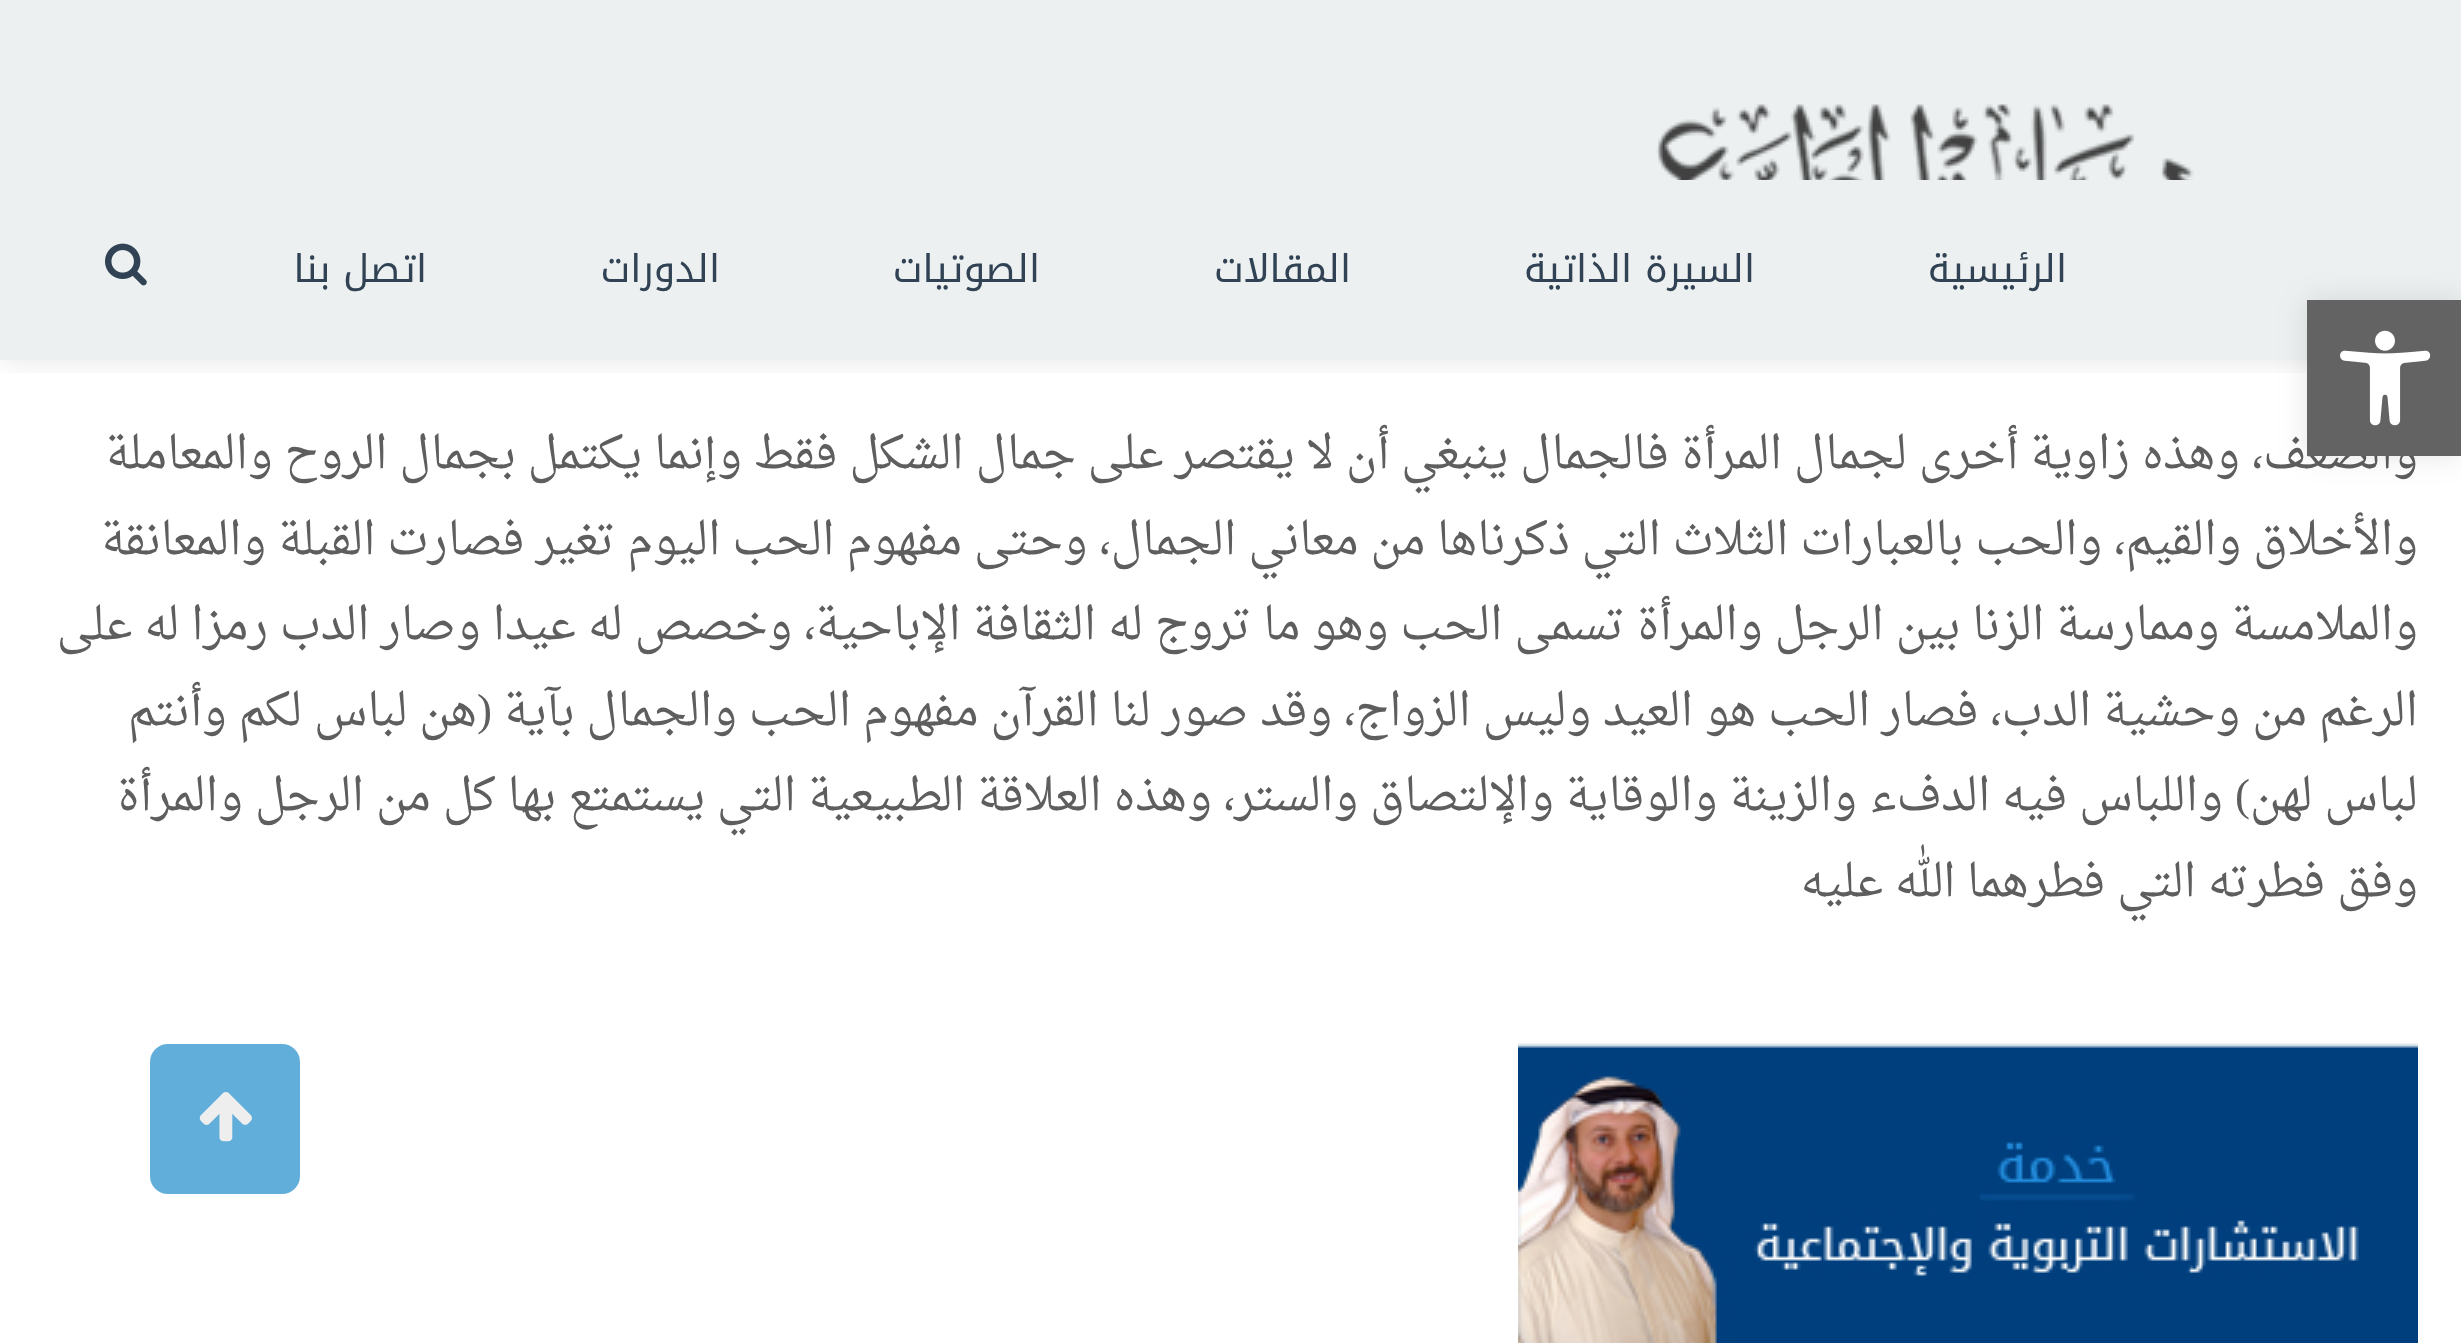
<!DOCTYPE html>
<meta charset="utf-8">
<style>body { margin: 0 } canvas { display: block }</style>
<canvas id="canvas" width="2461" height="1343"></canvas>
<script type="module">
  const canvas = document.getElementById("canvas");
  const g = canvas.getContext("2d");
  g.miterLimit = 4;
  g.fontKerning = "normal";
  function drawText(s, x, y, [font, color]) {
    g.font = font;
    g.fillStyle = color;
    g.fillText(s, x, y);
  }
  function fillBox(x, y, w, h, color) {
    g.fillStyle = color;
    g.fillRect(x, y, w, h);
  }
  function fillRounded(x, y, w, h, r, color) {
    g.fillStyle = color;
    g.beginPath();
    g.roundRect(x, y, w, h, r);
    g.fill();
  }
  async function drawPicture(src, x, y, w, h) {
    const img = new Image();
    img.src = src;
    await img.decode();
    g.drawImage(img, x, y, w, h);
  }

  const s1 = ["38.25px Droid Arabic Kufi", "#304253"];
  const s2 = ["45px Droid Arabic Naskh", "#5E5E5E"];
  const s3 = ["45px Liberation Serif", "#5E5E5E"];

  fillBox(0, 0, 2461, 1343, "#FFFFFF");
  g.save();
  g.beginPath();
  g.rect(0, 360, 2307, 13);
  g.clip();
  g.fillStyle = "rgba(0, 0, 0, 0.1)";
  g.filter = "blur(15px)";
  g.beginPath();
  g.rect(0, 0, 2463, 360);
  g.fill();
  g.filter = "none";
  g.restore();
  fillBox(0, 0, 2461, 360, "rgba(236, 240, 241, 0.98)");
  await drawPicture("pic1.png", 1656, 104, 538, 76);
  g.direction = "rtl";
  drawText("الرئيسية", 2067, 282, s1);
  drawText("السيرة الذاتية", 1755, 282, s1);
  drawText("المقالات", 1351, 282, s1);
  drawText("الصوتيات", 1040, 282, s1);
  drawText("الدورات", 720, 282, s1);
  drawText("اتصل بنا", 427, 282, s1);
  await drawPicture("pic2.png", 105, 243, 42, 43);
  drawText("والضعف، وهذه زاوية أخرى لجمال المرأة", 2418, 468, s2);
  drawText("فالجمال ينبغي أن لا يقتصر على جمال الشكل فقط وإنما يكتمل بجمال الروح والمعاملة", 1669, 468, s2);
  drawText("والأخلاق والقيم، والحب بالعبارات الثلاث التي ذكرناها من معاني الجمال، وحتى مفهوم الحب اليوم تغير فصارت القبلة والمعانقة", 2418, 554, s2);
  drawText("والملامسة وممارسة الزنا بين الرجل والمرأة تسمى الحب وهو ما تروج له الثقافة الإباحية، وخصص له عيدا وصار الدب رمزا له على", 2418, 639, s2);
  drawText("الرغم من وحشية الدب، فصار الحب هو العيد وليس الزواج، وقد صور لنا القرآن مفهوم الحب والجمال بآية", 2418, 725, s2);
  drawText("(", 492, 725, s3);
  drawText("هن لباس لكم وأنتم", 477, 725, s2);
  drawText("لباس لهن", 2418, 810, s2);
  drawText(")", 2250, 810, s3);
  drawText("واللباس فيه الدفء والزينة والوقاية والإلتصاق والستر، وهذه العلاقة الطبيعية التي يستمتع بها كل من الرجل والمرأة", 2223, 810, s2);
  drawText("وفق فطرته التي فطرهما الله عليه", 2418, 896, s2);
  await drawPicture("pic3.png", 1518, 1043, 900, 300);
  g.fillStyle = "rgba(0, 0, 0, 0.1)";
  g.filter = "blur(15px)";
  g.beginPath();
  g.rect(2307, 300, 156, 156);
  g.fill();
  g.filter = "none";
  fillBox(2307, 300, 154, 156, "#636363");
  await drawPicture("pic4.png", 2340, 330, 91, 96);
  fillRounded(150, 1044, 150, 150, 18, "#61AEDA");
  await drawPicture("pic5.png", 199, 1092, 53, 50);
</script>
